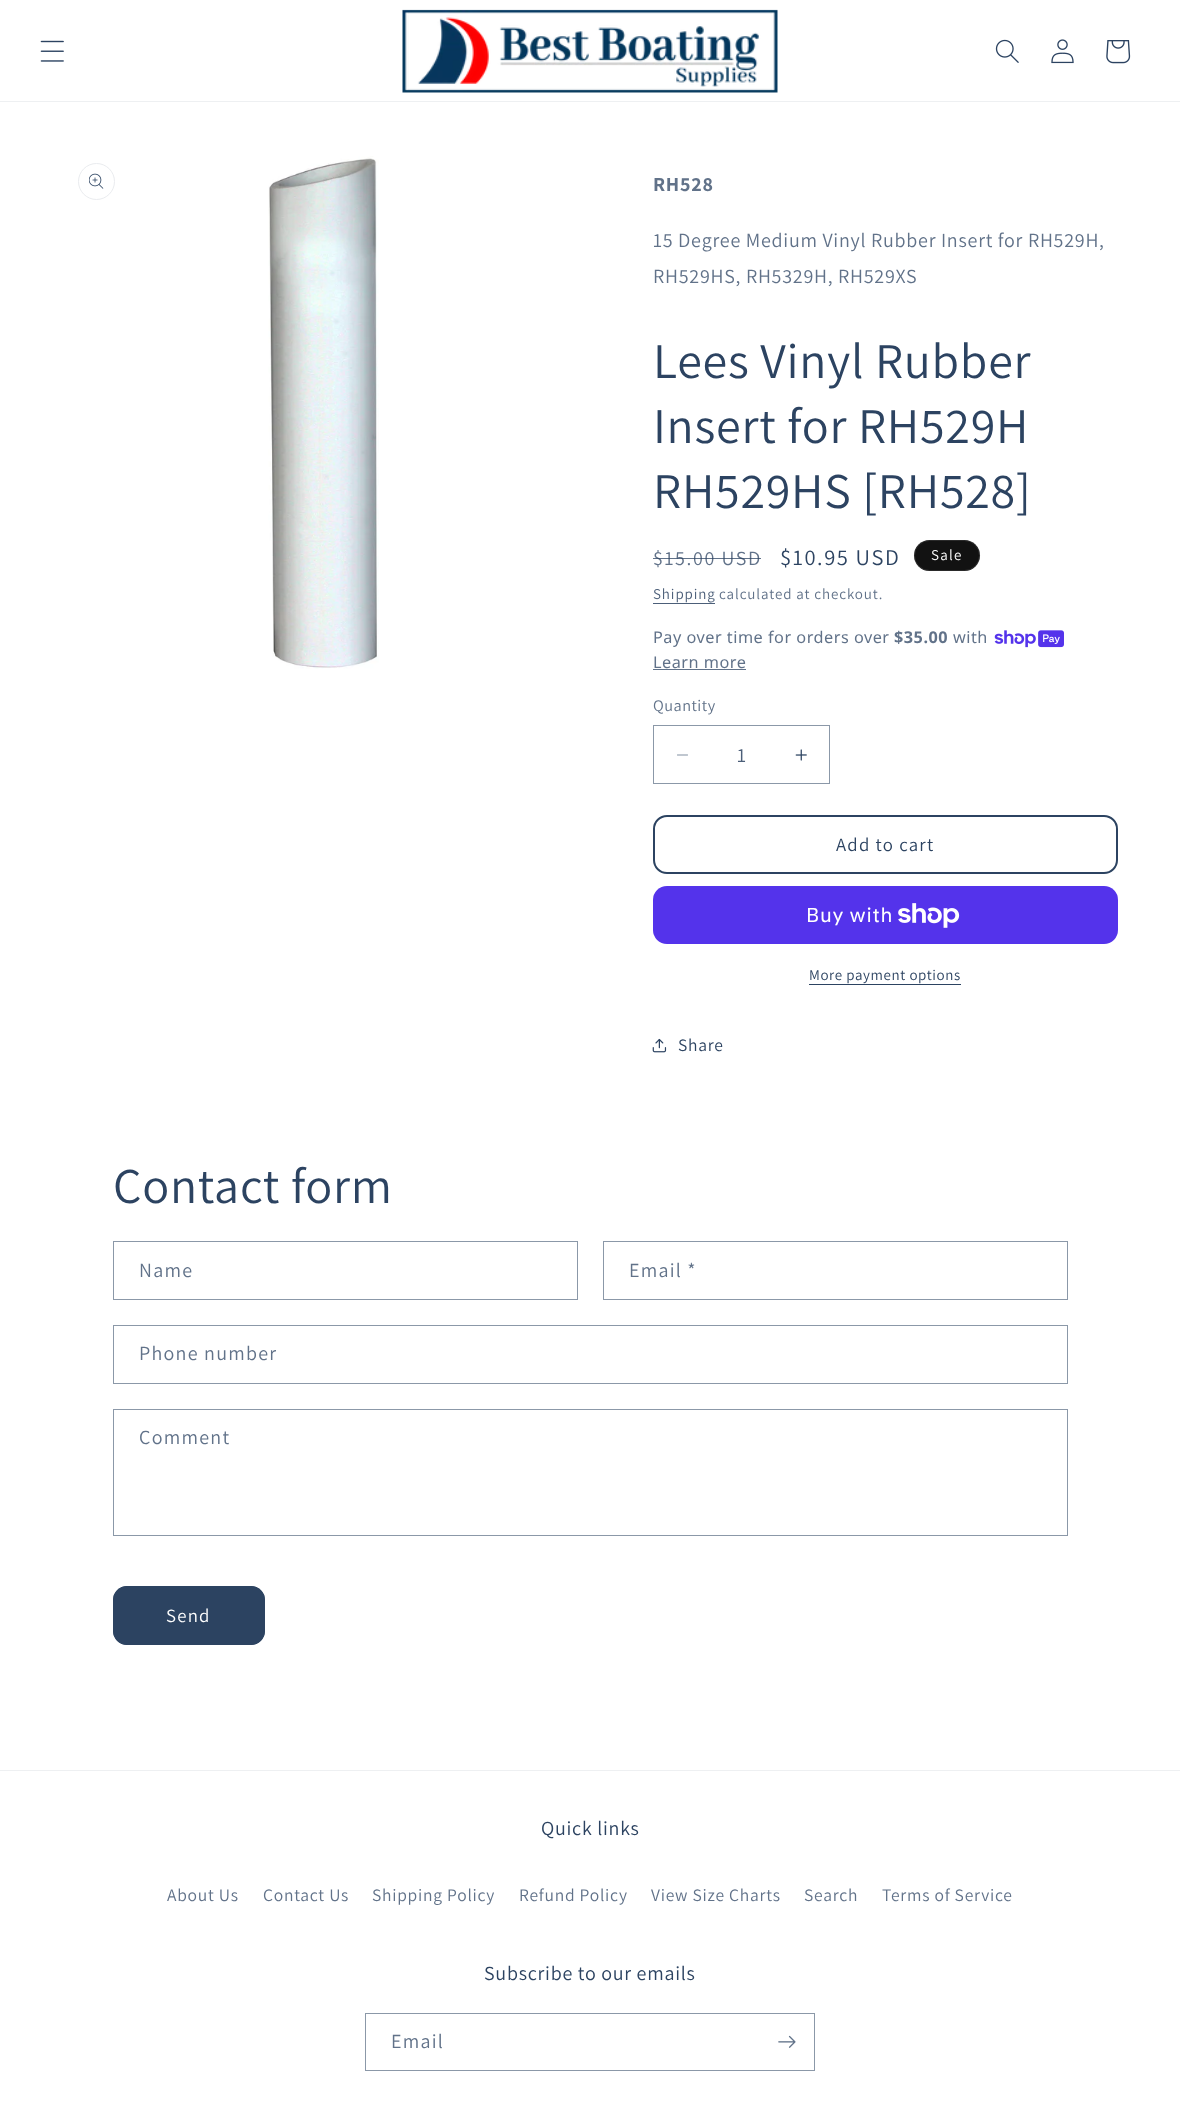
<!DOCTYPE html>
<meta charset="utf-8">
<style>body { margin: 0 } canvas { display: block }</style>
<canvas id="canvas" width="1180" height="2111"></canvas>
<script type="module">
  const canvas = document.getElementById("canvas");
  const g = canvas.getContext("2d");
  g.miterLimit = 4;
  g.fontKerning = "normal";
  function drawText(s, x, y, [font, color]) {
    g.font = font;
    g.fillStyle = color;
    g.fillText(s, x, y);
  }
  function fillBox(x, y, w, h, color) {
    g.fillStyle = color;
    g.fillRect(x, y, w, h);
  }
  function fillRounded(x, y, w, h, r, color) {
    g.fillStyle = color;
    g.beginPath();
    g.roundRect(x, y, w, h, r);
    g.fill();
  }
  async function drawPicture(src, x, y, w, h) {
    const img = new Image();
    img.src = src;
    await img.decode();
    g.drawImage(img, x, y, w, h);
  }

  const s1 = ["bold 20px Assistant", "#617289"];
  const s2 = ["20px Assistant", "#617289"];
  const s3 = ["50px Assistant", "#2C4361"];
  const s4 = ["22.5px Assistant", "#2C4361"];
  const s5 = ["15px Assistant", "#FFFFFF"];
  const s6 = ["15px Assistant", "#4C5F79"];
  const s7 = ["15px Assistant", "#617289"];
  const s8 = ["16.25px Noto Sans", "#617289"];
  const s9 = ["bold 16.25px Noto Sans", "#617289"];
  const s10 = ["16.25px Assistant", "#617289"];
  const s11 = ["20px Assistant", "#4C5F79"];
  const s12 = ["18.75px Assistant", "#2C4361"];
  const s13 = ["20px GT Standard", "#FFFFFF"];
  const s14 = ["15px Assistant", "#2C4361"];
  const s15 = ["17.5px Assistant", "#2C4361"];
  const s16 = ["18.75px Assistant", "#FFFFFF"];
  const s17 = ["20px Assistant", "#2C4361"];
  const s18 = ["17.5px Assistant", "#617289"];

  fillBox(0, 0, 1180, 2111, "#FFFFFF");
  fillBox(0, 101, 1180, 1, "#EEF0F2");
  await drawPicture("pic1.png", 40, 40, 24, 22);
  await drawPicture("pic2.png", 402, 9, 376, 84);
  await drawPicture("pic3.png", 995, 39, 24, 24);
  await drawPicture("pic4.png", 1051, 39, 23, 25);
  await drawPicture("pic5.png", 1106, 40, 25, 24);
  g.beginPath();
  g.arc(96.5, 181.5, 18, 0, Math.PI * 2);
  g.strokeStyle = "#EAECEF";
  g.stroke();
  await drawPicture("pic6.png", 89, 173, 15, 16);
  await drawPicture("pic7.png", 268, 156, 111, 513);
  g.letterSpacing = "0.75px";
  drawText("RH528", 653, 191, s1);
  drawText("15 Degree Medium Vinyl Rubber Insert for RH529H,", 653, 247, s2);
  drawText("RH529HS, RH5329H, RH529XS", 653, 283, s2);
  drawText("Lees Vinyl Rubber", 653, 378, s3);
  drawText("Insert for RH529H", 653, 443, s3);
  drawText("RH529HS [RH528]", 653, 508, s3);
  g.letterSpacing = "1.6px";
  drawText("$15.00 USD", 653, 565, s2);
  fillBox(653, 558, 108, 1, "rgba(44, 67, 97, 0.75)");
  drawText("$10.95 USD", 780, 565, s4);
  fillRounded(914, 540, 66, 31, 15.5, "#121212");
  g.beginPath();
  g.roundRect(914.5, 540.5, 65, 30, 15);
  g.strokeStyle = "rgba(255, 255, 255, 0.1)";
  g.stroke();
  g.letterSpacing = "1.25px";
  drawText("Sale", 931, 560, s5);
  g.letterSpacing = "0.9px";
  drawText("Shipping", 653, 599, s6);
  fillBox(653, 603, 62, 1, "#4C5F79");
  drawText("calculated at checkout.", 719, 599, s7);
  g.letterSpacing = "0.5px";
  drawText("Pay over time for orders over", 653, 643, s8);
  drawText("$35.00", 894, 643, s9);
  drawText("with", 953, 643, s8);
  await drawPicture("pic8.png", 994, 630, 70, 18);
  drawText("Learn more", 653, 668, s8);
  fillBox(653, 669, 93, 1, "#617289");
  drawText("Quantity", 653, 711, s10);
  await drawPicture("pic9.png", 677, 754, 11, 2);
  await drawPicture("pic10.png", 795, 749, 12, 12);
  g.strokeStyle = "#8B98A8";
  g.strokeRect(653.5, 725.5, 176, 58);
  g.letterSpacing = "0px";
  drawText("1", 737, 762, s11);
  g.beginPath();
  g.roundRect(654, 816, 463, 57, 13);
  g.strokeStyle = "#2C4361";
  g.lineWidth = 2;
  g.stroke();
  g.letterSpacing = "1.25px";
  drawText("Add to cart", 836, 851, s12);
  fillRounded(653, 886, 465, 58, 14, "#5433EB");
  g.letterSpacing = "0.75px";
  drawText("Buy with", 806, 922, s13);
  await drawPicture("pic11.png", 898, 903, 62, 25);
  g.letterSpacing = "0.6px";
  drawText("More payment options", 809, 980, s14);
  fillBox(809, 984, 152, 1, "#2C4361");
  await drawPicture("pic12.png", 652, 1038, 15, 15);
  g.letterSpacing = "0.75px";
  drawText("Share", 678, 1051, s15);
  drawText("Contact form", 113, 1203, s3);
  g.strokeStyle = "#8B98A8";
  g.lineWidth = 1;
  g.strokeRect(113.5, 1241.5, 464, 58);
  g.letterSpacing = "1.25px";
  drawText("Name", 139, 1277, s2);
  g.strokeRect(603.5, 1241.5, 464, 58);
  drawText("Email *", 629, 1277, s2);
  g.strokeRect(113.5, 1325.5, 954, 58);
  drawText("Phone number", 139, 1360, s2);
  g.strokeRect(113.5, 1409.5, 954, 126);
  drawText("Comment", 139, 1444, s2);
  fillRounded(113, 1586, 152, 59, 14, "#2C4361");
  g.beginPath();
  g.roundRect(113.5, 1586.5, 151, 58, 13.5);
  g.strokeStyle = "#2C4361";
  g.stroke();
  drawText("Send", 166, 1622, s16);
  fillBox(0, 1770, 1180, 1, "#EEF0F2");
  g.letterSpacing = "0.75px";
  drawText("Quick links", 541, 1835, s17);
  drawText("About Us", 167, 1901, s18);
  drawText("Contact Us", 263, 1901, s18);
  drawText("Shipping Policy", 372, 1901, s18);
  drawText("Refund Policy", 519, 1901, s18);
  drawText("View Size Charts", 651, 1901, s18);
  drawText("Search", 804, 1901, s18);
  drawText("Terms of Service", 882, 1901, s18);
  drawText("Subscribe to our emails", 484, 1980, s17);
  g.strokeStyle = "#8B98A8";
  g.strokeRect(365.5, 2013.5, 449, 57);
  g.letterSpacing = "1.25px";
  drawText("Email", 391, 2048, s2);
  await drawPicture("pic13.png", 778, 2035, 18, 13);
</script>
